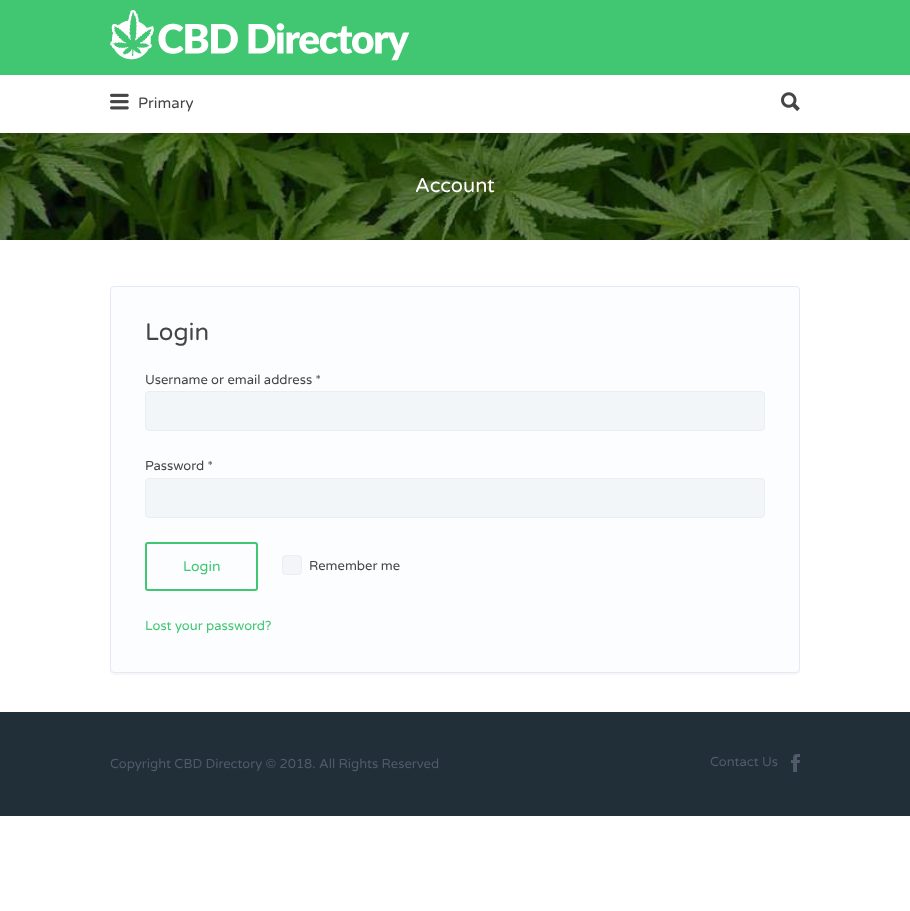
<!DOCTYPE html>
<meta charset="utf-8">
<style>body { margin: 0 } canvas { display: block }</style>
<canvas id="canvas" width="910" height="911"></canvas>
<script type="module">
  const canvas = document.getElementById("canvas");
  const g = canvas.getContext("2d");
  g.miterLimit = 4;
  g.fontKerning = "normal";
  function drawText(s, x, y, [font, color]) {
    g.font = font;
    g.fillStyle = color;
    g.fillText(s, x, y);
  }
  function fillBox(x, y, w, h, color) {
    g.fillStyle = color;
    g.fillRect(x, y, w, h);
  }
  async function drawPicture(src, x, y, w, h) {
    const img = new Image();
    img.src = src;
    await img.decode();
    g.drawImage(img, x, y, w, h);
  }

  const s1 = ["15px Varela Round", "#454545"];
  const s2 = ["20px Varela Round", "#FFFFFF"];
  const s3 = ["24px Varela Round", "#454545"];
  const s4 = ["13px Varela Round", "#454545"];
  const s5 = ["14px Varela Round", "#41C772"];
  const s6 = ["13px Varela Round", "#41C772"];
  const s7 = ["13px Varela Round", "#515B6A"];

  fillBox(0, 0, 910, 911, "#FFFFFF");
  fillBox(0, 0, 910, 75, "#41C772");
  await drawPicture("pic1.png", 110, 10, 300, 51);
  await drawPicture("pic2.png", 110, 93, 19, 17);
  drawText("Primary", 138, 108, s1);
  await drawPicture("pic3.png", 781, 92, 19, 19);
  await drawPicture("pic4.png", 0, 133, 910, 107);
  drawText("Account", 415, 192, s2);
  g.fillStyle = "#F7F7F7";
  g.beginPath();
  g.moveTo(110, 669);
  g.lineTo(110, 671);
  g.bezierCurveTo(110, 673, 112, 675, 114, 675);
  g.lineTo(796, 675);
  g.bezierCurveTo(798, 675, 800, 673, 800, 671);
  g.lineTo(800, 669);
  g.bezierCurveTo(800, 671, 798, 673, 796, 673);
  g.lineTo(114, 673);
  g.bezierCurveTo(112, 673, 110, 671, 110, 669);
  g.closePath();
  g.fill();
  g.fillStyle = "#FCFDFF";
  g.beginPath();
  g.roundRect(110.5, 286.5, 689, 386, 3.5);
  g.fill();
  g.strokeStyle = "#E3EAF4";
  g.stroke();
  drawText("Login", 145, 340, s3);
  drawText("Username or email address *", 145, 384, s4);
  g.fillStyle = "#F3F6F9";
  g.beginPath();
  g.roundRect(145.5, 391.5, 619, 39, 3.5);
  g.fill();
  g.strokeStyle = "#EBEEF1";
  g.stroke();
  drawText("Password *", 145, 470, s4);
  g.fillStyle = "#F3F6F9";
  g.beginPath();
  g.roundRect(145.5, 478.5, 619, 39, 3.5);
  g.fill();
  g.stroke();
  g.beginPath();
  g.roundRect(146, 543, 111, 47, 2);
  g.strokeStyle = "#41C772";
  g.lineWidth = 2;
  g.stroke();
  drawText("Login", 183, 571, s5);
  g.fillStyle = "#F3F6F9";
  g.beginPath();
  g.roundRect(282.5, 555.5, 19, 19, 3.5);
  g.fill();
  g.strokeStyle = "#EBEEF1";
  g.lineWidth = 1;
  g.stroke();
  drawText("Remember me", 309, 570, s4);
  drawText("Lost your password?", 145, 630, s6);
  fillBox(0, 712, 910, 104, "#202F38");
  drawText("Copyright CBD Directory © 2018. All Rights Reserved", 110, 768, s7);
  drawText("Contact Us", 710, 766, s7);
  await drawPicture("pic5.png", 791, 754, 9, 18);
</script>
